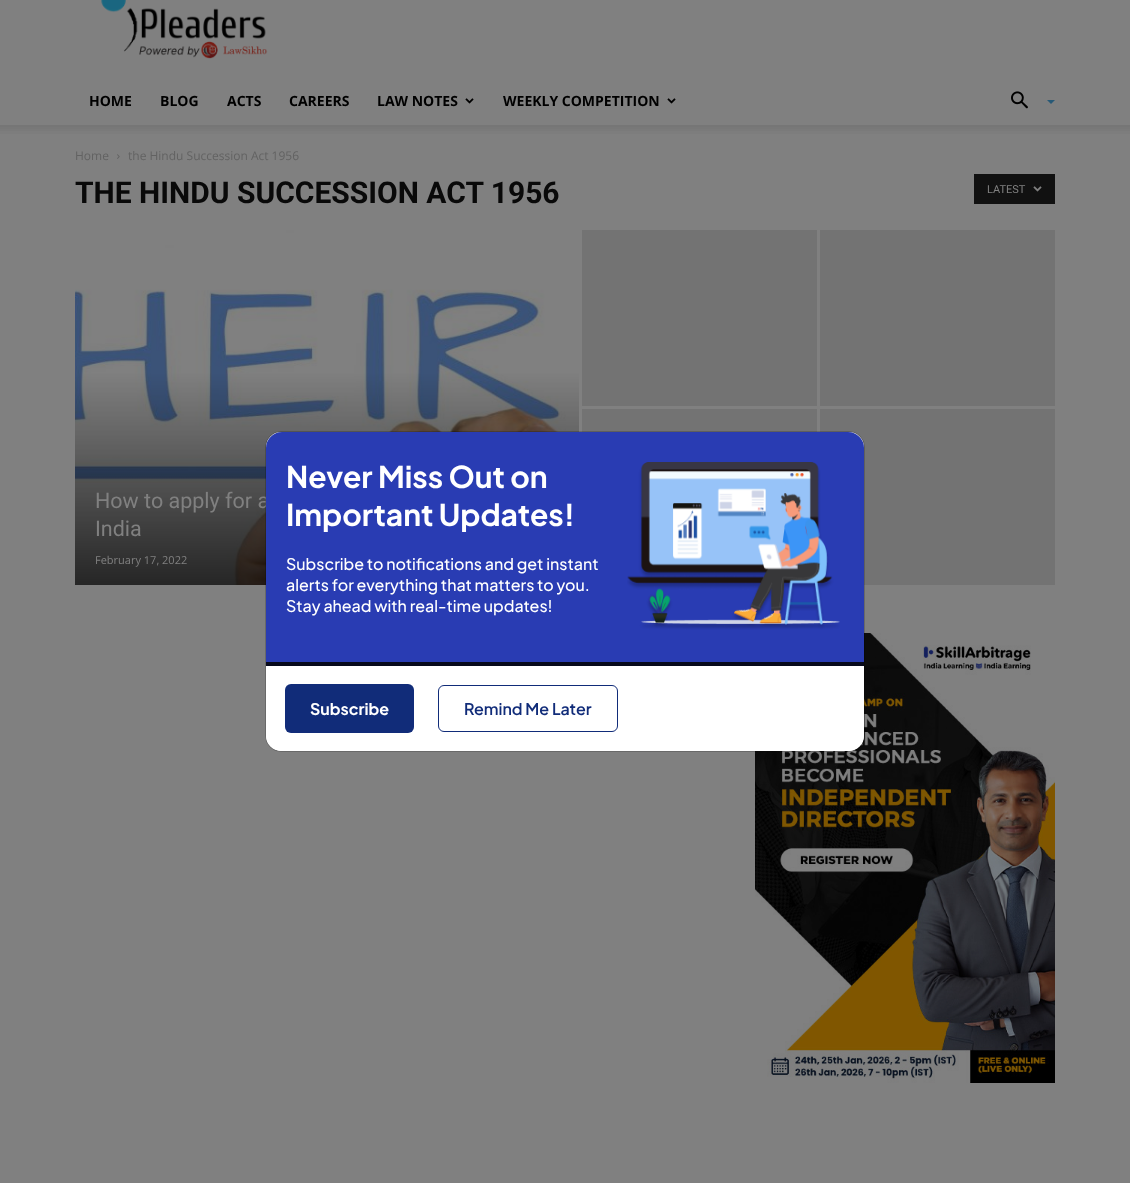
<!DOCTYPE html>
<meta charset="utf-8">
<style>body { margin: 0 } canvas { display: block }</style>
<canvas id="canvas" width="1130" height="1183"></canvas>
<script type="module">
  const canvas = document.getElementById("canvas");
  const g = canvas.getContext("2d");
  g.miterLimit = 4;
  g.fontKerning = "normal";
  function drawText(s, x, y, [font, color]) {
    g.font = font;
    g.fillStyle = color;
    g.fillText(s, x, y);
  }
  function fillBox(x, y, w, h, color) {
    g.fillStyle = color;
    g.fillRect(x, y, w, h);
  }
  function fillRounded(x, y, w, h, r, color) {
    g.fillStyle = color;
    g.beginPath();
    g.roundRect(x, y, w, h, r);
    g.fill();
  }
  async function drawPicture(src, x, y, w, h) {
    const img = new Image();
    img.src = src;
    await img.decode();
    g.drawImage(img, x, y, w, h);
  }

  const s1 = ["bold 14px Open Sans", "#000000"];
  const s2 = ["12px Open Sans", "#626262"];
  const s3 = ["bold 30px Roboto", "#090909"];
  const s4 = ["11px Roboto", "#808080"];
  const s5 = ["21.5px Roboto", "#808080"];
  const s6 = ["11px Open Sans", "#808080"];
  const s7 = ["bold 30px Plus Jakarta Sans", "#FFFFFF"];
  const s8 = ["500 16px Plus Jakarta Sans", "#FFFFFF"];
  const s9 = ["bold 16px Plus Jakarta Sans", "#FFFFFF"];
  const s10 = ["600 16px Plus Jakarta Sans", "#112C79"];

  fillBox(0, 0, 1130, 1183, "#808080");
  await drawPicture("pic1.png", 101, 0, 167, 59);
  drawText("HOME", 89, 106, s1);
  drawText("BLOG", 160, 106, s1);
  drawText("ACTS", 227, 106, s1);
  drawText("CAREERS", 289, 106, s1);
  drawText("LAW NOTES", 377, 106, s1);
  await drawPicture("pic2.png", 465, 98, 9, 6);
  drawText("WEEKLY COMPETITION", 503, 106, s1);
  await drawPicture("pic2.png", 667, 98, 9, 6);
  await drawPicture("pic3.png", 1011, 91, 17, 18);
  g.fillStyle = "#275976";
  g.beginPath();
  g.moveTo(1047, 100);
  g.lineTo(1055, 100);
  g.lineTo(1051, 104);
  g.closePath();
  g.fill();
  await drawPicture("pic4.png", 0, 125, 1130, 9);
  drawText("Home", 75, 160, s2);
  await drawPicture("pic5.png", 117, 154, 3, 5);
  drawText("the Hindu Succession Act 1956", 128, 160, s2);
  drawText("THE HINDU SUCCESSION ACT 1956", 75, 203, s3);
  fillBox(974, 174, 81, 30, "#111111");
  drawText("LATEST", 987, 193, s4);
  await drawPicture("pic6.png", 1033, 186, 9, 6);
  await drawPicture("pic7.png", 75, 230, 504, 355);
  drawText("How to apply for a", 95, 508, s5);
  drawText("India", 95, 536, s5);
  drawText("February 17, 2022", 95, 564, s6);
  fillBox(582, 230, 235, 176, "#737373");
  fillBox(820, 230, 235, 176, "#737373");
  fillBox(582, 409, 235, 23, "#737373");
  fillBox(820, 409, 235, 176, "#737373");
  await drawPicture("pic8.png", 755, 633, 300, 450);
  fillRounded(266, 432, 598, 319, 15, "#FFFFFF");
  g.beginPath();
  g.roundRect(265.5, 431.5, 599, 320, 15.5);
  g.strokeStyle = "rgba(0, 0, 0, 0.18)";
  g.stroke();
  g.fillStyle = "#293CB3";
  g.beginPath();
  g.roundRect(266, 432, 598, 230, [16, 16, 0, 0]);
  g.fill();
  drawText("Never Miss Out on", 286, 488, s7);
  drawText("Important Updates!", 286, 526, s7);
  drawText("Subscribe to notifications and get instant", 286, 570, s8);
  drawText("alerts for everything that matters to you.", 286, 591, s8);
  drawText("Stay ahead with real-time updates!", 286, 612, s8);
  await drawPicture("pic9.png", 627, 462, 213, 168);
  g.beginPath();
  g.roundRect(266, 662, 598, 89, [0, 0, 16, 16]);
  g.fill();
  fillBox(266, 662, 598, 4, "#07091B");
  fillRounded(285, 684, 129, 49, 6, "#112C79");
  drawText("Subscribe", 310, 715, s9);
  g.beginPath();
  g.roundRect(438.5, 685.5, 179, 46, 5.5);
  g.strokeStyle = "#112C79";
  g.stroke();
  drawText("Remind Me Later", 464, 715, s10);
</script>
